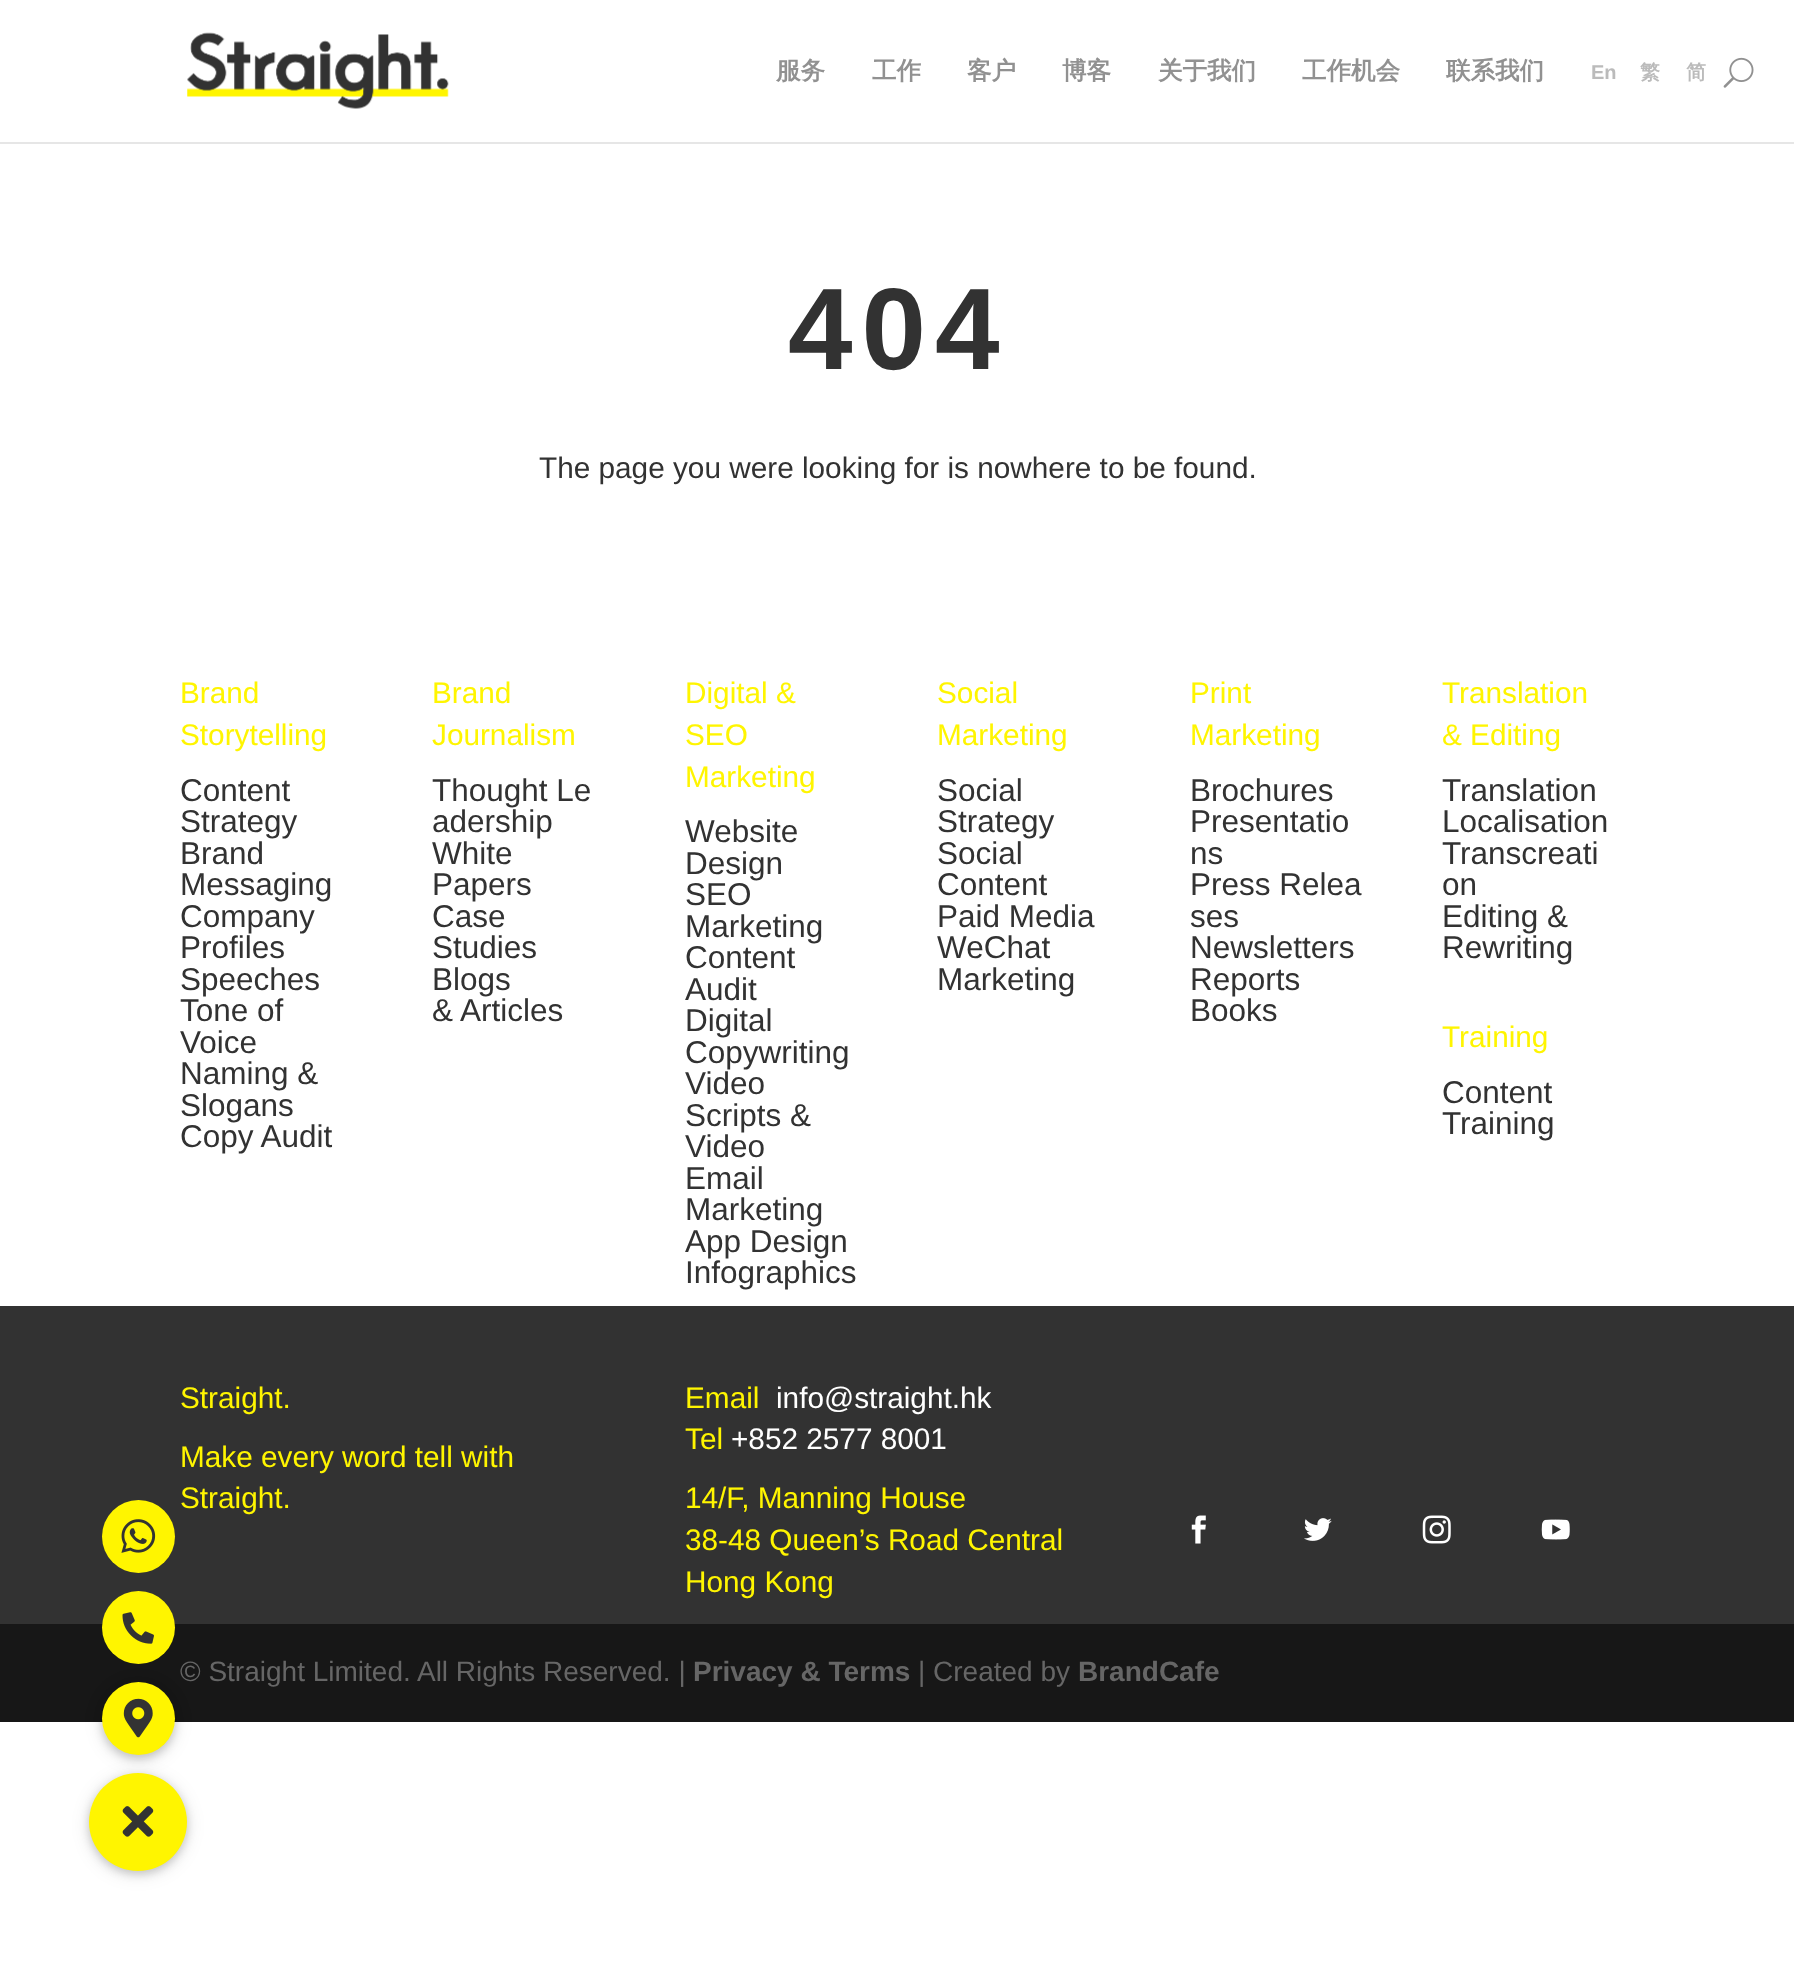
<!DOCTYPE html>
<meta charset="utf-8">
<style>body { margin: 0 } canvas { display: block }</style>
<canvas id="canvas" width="1794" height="1968"></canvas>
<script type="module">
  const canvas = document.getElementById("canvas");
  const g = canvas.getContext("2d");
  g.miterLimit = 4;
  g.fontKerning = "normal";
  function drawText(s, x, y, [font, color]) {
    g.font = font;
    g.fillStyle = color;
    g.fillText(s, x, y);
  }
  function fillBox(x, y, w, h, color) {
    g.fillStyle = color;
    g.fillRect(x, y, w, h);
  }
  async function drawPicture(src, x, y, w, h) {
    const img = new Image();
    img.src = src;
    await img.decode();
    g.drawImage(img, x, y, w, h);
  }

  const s1 = ["bold 24.5px WenQuanYi Zen Hei", "#919191"];
  const s2 = ["bold 20px Liberation Sans", "#BBBBBB"];
  const s3 = ["bold 20px WenQuanYi Zen Hei", "#BBBBBB"];
  const s4 = ["bold 116px Liberation Sans", "#323232"];
  const s5 = ["29.75px Liberation Sans", "#323232"];
  const s6 = ["29.75px Liberation Sans", "#FFF500"];
  const s7 = ["31.5px Liberation Sans", "#323232"];
  const s8 = ["29.75px Liberation Sans", "#FFFFFF"];
  const s9 = ["28px Liberation Sans", "#666666"];
  const s10 = ["bold 28px Liberation Sans", "#666666"];

  fillBox(0, 0, 1794, 1968, "#FFFFFF");
  fillBox(0, 1306, 1794, 318, "#323232");
  g.fillStyle = "#FFF500";
  g.beginPath();
  g.arc(138.5, 1536.5, 36.5, 0, Math.PI * 2);
  g.fill();
  await drawPicture("pic1.png", 121, 1519, 35, 34);
  fillBox(0, 1624, 1794, 98, "#171717");
  g.fillStyle = "rgba(0, 0, 0, 0.12)";
  g.filter = "blur(9px)";
  g.beginPath();
  g.roundRect(102, 1685, 73, 74, 36.5);
  g.fill();
  g.filter = "none";
  g.fillStyle = "#FFF500";
  g.beginPath();
  g.arc(138.5, 1627.5, 36.5, 0, Math.PI * 2);
  g.fill();
  await drawPicture("pic2.png", 122, 1612, 32, 32);
  g.fillStyle = "rgba(0, 0, 0, 0.16)";
  g.filter = "blur(4.5px)";
  g.beginPath();
  g.roundRect(102, 1685, 73, 74, 36.5);
  g.fill();
  g.filter = "none";
  g.fillStyle = "#FFF500";
  g.beginPath();
  g.arc(138.5, 1718.5, 36.5, 0, Math.PI * 2);
  g.fill();
  await drawPicture("pic3.png", 123, 1698, 30, 40);
  g.fillStyle = "rgba(0, 0, 0, 0.12)";
  g.filter = "blur(9px)";
  g.beginPath();
  g.roundRect(89, 1776, 98, 98, 49);
  g.fill();
  g.filter = "none";
  g.fillStyle = "rgba(0, 0, 0, 0.16)";
  g.filter = "blur(4.5px)";
  g.beginPath();
  g.roundRect(89, 1776, 98, 98, 49);
  g.fill();
  g.filter = "none";
  g.fillStyle = "#FFF500";
  g.beginPath();
  g.arc(138, 1822, 49, 0, Math.PI * 2);
  g.fill();
  await drawPicture("pic4.png", 122, 1806, 32, 31);
  g.fillStyle = "#E6E6E6";
  g.beginPath();
  g.moveTo(0, 142);
  g.lineTo(0, 144);
  g.lineTo(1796, 144);
  g.lineTo(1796, 2);
  g.lineTo(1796, 142);
  g.closePath();
  g.fill();
  await drawPicture("pic5.png", 187, 32, 262, 77);
  drawText("服务", 776, 79, s1);
  drawText("工作", 872, 79, s1);
  drawText("客户", 967, 79, s1);
  drawText("博客", 1062, 79, s1);
  drawText("关于我们", 1158, 79, s1);
  drawText("工作机会", 1302, 79, s1);
  drawText("联系我们", 1446, 79, s1);
  drawText("En", 1591, 79, s2);
  drawText("繁", 1640, 79, s3);
  drawText("简", 1686, 79, s3);
  await drawPicture("pic6.png", 1723, 57, 31, 31);
  g.letterSpacing = "9px";
  drawText("404", 788, 369, s4);
  g.letterSpacing = "0px";
  drawText("The page you were looking for is nowhere to be found.", 539, 478, s5);
  drawText("Brand", 180, 703, s6);
  drawText("Storytelling", 180, 745, s6);
  drawText("Content", 180, 801, s7);
  drawText("Strategy", 180, 832, s7);
  drawText("Brand", 180, 864, s7);
  drawText("Messaging", 180, 895, s7);
  drawText("Company", 180, 927, s7);
  drawText("Profiles", 180, 958, s7);
  drawText("Speeches", 180, 990, s7);
  drawText("Tone of", 180, 1021, s7);
  drawText("Voice", 180, 1053, s7);
  drawText("Naming &", 180, 1084, s7);
  drawText("Slogans", 180, 1116, s7);
  drawText("Copy Audit", 180, 1147, s7);
  drawText("Brand", 432, 703, s6);
  drawText("Journalism", 432, 745, s6);
  drawText("Thought Le", 432, 801, s7);
  drawText("adership", 432, 832, s7);
  drawText("White", 432, 864, s7);
  drawText("Papers", 432, 895, s7);
  drawText("Case", 432, 927, s7);
  drawText("Studies", 432, 958, s7);
  drawText("Blogs", 432, 990, s7);
  drawText("& Articles", 432, 1021, s7);
  drawText("Digital &", 685, 703, s6);
  drawText("SEO", 685, 745, s6);
  drawText("Marketing", 685, 787, s6);
  drawText("Website", 685, 842, s7);
  drawText("Design", 685, 874, s7);
  drawText("SEO", 685, 905, s7);
  drawText("Marketing", 685, 937, s7);
  drawText("Content", 685, 968, s7);
  drawText("Audit", 685, 1000, s7);
  drawText("Digital", 685, 1031, s7);
  drawText("Copywriting", 685, 1063, s7);
  drawText("Video", 685, 1094, s7);
  drawText("Scripts &", 685, 1126, s7);
  drawText("Video", 685, 1157, s7);
  drawText("Email", 685, 1189, s7);
  drawText("Marketing", 685, 1220, s7);
  drawText("App Design", 685, 1252, s7);
  drawText("Infographics", 685, 1283, s7);
  drawText("Social", 937, 703, s6);
  drawText("Marketing", 937, 745, s6);
  drawText("Social", 937, 801, s7);
  drawText("Strategy", 937, 832, s7);
  drawText("Social", 937, 864, s7);
  drawText("Content", 937, 895, s7);
  drawText("Paid Media", 937, 927, s7);
  drawText("WeChat", 937, 958, s7);
  drawText("Marketing", 937, 990, s7);
  drawText("Print", 1190, 703, s6);
  drawText("Marketing", 1190, 745, s6);
  drawText("Brochures", 1190, 801, s7);
  drawText("Presentatio", 1190, 832, s7);
  drawText("ns", 1190, 864, s7);
  drawText("Press Relea", 1190, 895, s7);
  drawText("ses", 1190, 927, s7);
  drawText("Newsletters", 1190, 958, s7);
  drawText("Reports", 1190, 990, s7);
  drawText("Books", 1190, 1021, s7);
  drawText("Translation", 1442, 703, s6);
  drawText("& Editing", 1442, 745, s6);
  drawText("Translation", 1442, 801, s7);
  drawText("Localisation", 1442, 832, s7);
  drawText("Transcreati", 1442, 864, s7);
  drawText("on", 1442, 895, s7);
  drawText("Editing &", 1442, 927, s7);
  drawText("Rewriting", 1442, 958, s7);
  drawText("Training", 1442, 1047, s6);
  drawText("Content", 1442, 1103, s7);
  drawText("Training", 1442, 1134, s7);
  drawText("Straight.", 180, 1408, s6);
  drawText("Make every word tell with", 180, 1467, s6);
  drawText("Straight.", 180, 1508, s6);
  drawText("Email", 685, 1408, s6);
  drawText("info@straight.hk", 776, 1408, s8);
  drawText("Tel", 685, 1449, s6);
  drawText("+852 2577 8001", 731, 1449, s8);
  drawText("14/F, Manning House", 685, 1508, s6);
  drawText("38-48 Queen’s Road Central", 685, 1550, s6);
  drawText("Hong Kong", 685, 1592, s6);
  await drawPicture("pic7.png", 1191, 1515, 15, 29);
  await drawPicture("pic8.png", 1304, 1518, 28, 23);
  await drawPicture("pic9.png", 1422, 1515, 29, 29);
  await drawPicture("pic10.png", 1541, 1519, 29, 21);
  drawText("© Straight Limited. All Rights Reserved. |", 180, 1681, s9);
  drawText("Privacy & Terms", 693, 1681, s10);
  drawText("| Created by", 918, 1681, s9);
  drawText("BrandCafe", 1078, 1681, s10);
</script>
